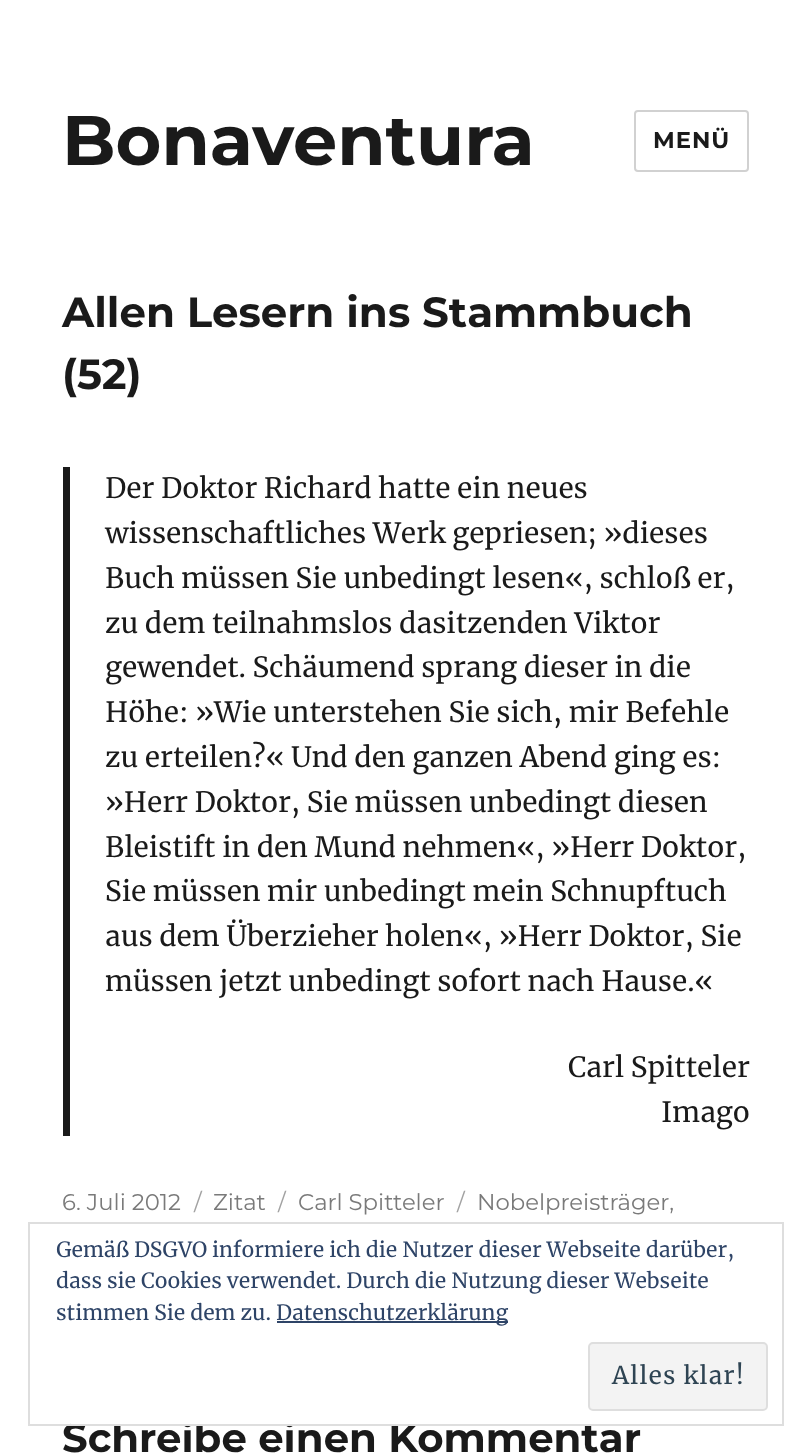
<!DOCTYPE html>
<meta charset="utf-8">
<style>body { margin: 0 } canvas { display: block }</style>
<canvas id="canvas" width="811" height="1454"></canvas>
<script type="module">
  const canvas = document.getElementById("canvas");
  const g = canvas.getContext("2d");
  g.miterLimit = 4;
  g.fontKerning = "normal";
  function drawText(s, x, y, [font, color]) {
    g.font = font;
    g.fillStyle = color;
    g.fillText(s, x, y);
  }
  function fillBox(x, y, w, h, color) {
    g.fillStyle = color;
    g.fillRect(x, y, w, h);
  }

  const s1 = ["bold 70px Montserrat", "#1A1A1A"];
  const s2 = ["bold 22.75px Montserrat", "#1A1A1A"];
  const s3 = ["bold 42px Montserrat", "#1A1A1A"];
  const s4 = ["28px Merriweather", "#1A1A1A"];
  const s5 = ["22.75px Montserrat", "#7A7A7A"];
  const s6 = ["22.75px Montserrat", "#A2A2A2"];
  const s7 = ["bold 40.25px Montserrat", "#1A1A1A"];
  const s8 = ["21px Merriweather", "#2E4467"];
  const s9 = ["24.5px Merriweather", "#2E4453"];

  fillBox(0, 0, 811, 1454, "#FFFFFF");
  drawText("Bonaventura", 62, 165, s1);
  g.beginPath();
  g.roundRect(635, 111, 113, 60, 3);
  g.strokeStyle = "#D1D1D1";
  g.lineWidth = 2;
  g.stroke();
  g.letterSpacing = "1px";
  drawText("MENÜ", 653, 148, s2);
  g.letterSpacing = "0px";
  drawText("Allen Lesern ins Stammbuch", 62, 327, s3);
  drawText("(52)", 62, 389, s3);
  fillBox(63, 467, 7, 669, "#1A1A1A");
  drawText("Der Doktor Richard hatte ein neues", 105, 498, s4);
  drawText("wissenschaftliches Werk gepriesen; »dieses", 105, 543, s4);
  drawText("Buch müssen Sie unbedingt lesen«, schloß er,", 105, 588, s4);
  drawText("zu dem teilnahmslos dasitzenden Viktor", 105, 633, s4);
  drawText("gewendet. Schäumend sprang dieser in die", 105, 677, s4);
  drawText("Höhe: »Wie unterstehen Sie sich, mir Befehle", 105, 722, s4);
  drawText("zu erteilen?« Und den ganzen Abend ging es:", 105, 767, s4);
  drawText("»Herr Doktor, Sie müssen unbedingt diesen", 105, 812, s4);
  drawText("Bleistift in den Mund nehmen«, »Herr Doktor,", 105, 857, s4);
  drawText("Sie müssen mir unbedingt mein Schnupftuch", 105, 901, s4);
  drawText("aus dem Überzieher holen«, »Herr Doktor, Sie", 105, 946, s4);
  drawText("müssen jetzt unbedingt sofort nach Hause.«", 105, 991, s4);
  drawText("Carl Spitteler", 568, 1077, s4);
  drawText("Imago", 661, 1122, s4);
  drawText("6. Juli 2012", 62, 1210, s5);
  drawText("/", 194, 1210, s6);
  drawText("Zitat", 213, 1210, s5);
  drawText("/", 278, 1210, s6);
  drawText("Carl Spitteler", 298, 1210, s5);
  drawText("/", 457, 1210, s6);
  drawText("Nobelpreisträger,", 477, 1210, s5);
  drawText("Schreibe einen Kommentar", 62, 1452, s7);
  fillBox(71, 1420, 348, 4, "#FFFFFF");
  g.strokeStyle = "#DEDEDE";
  g.strokeRect(29, 1223, 754, 202);
  drawText("Gemäß DSGVO informiere ich die Nutzer dieser Webseite darüber,", 56, 1257, s8);
  drawText("dass sie Cookies verwendet. Durch die Nutzung dieser Webseite", 56, 1288, s8);
  drawText("stimmen Sie dem zu.", 56, 1320, s8);
  fillBox(277, 1321, 231, 2, "#2E4467");
  drawText("Datenschutzerklärung", 276, 1320, s8);
  g.fillStyle = "#F3F3F3";
  g.beginPath();
  g.roundRect(589, 1343, 178, 67, 4);
  g.fill();
  g.stroke();
  g.letterSpacing = "1.1px";
  drawText("Alles klar!", 612, 1384, s9);
</script>
